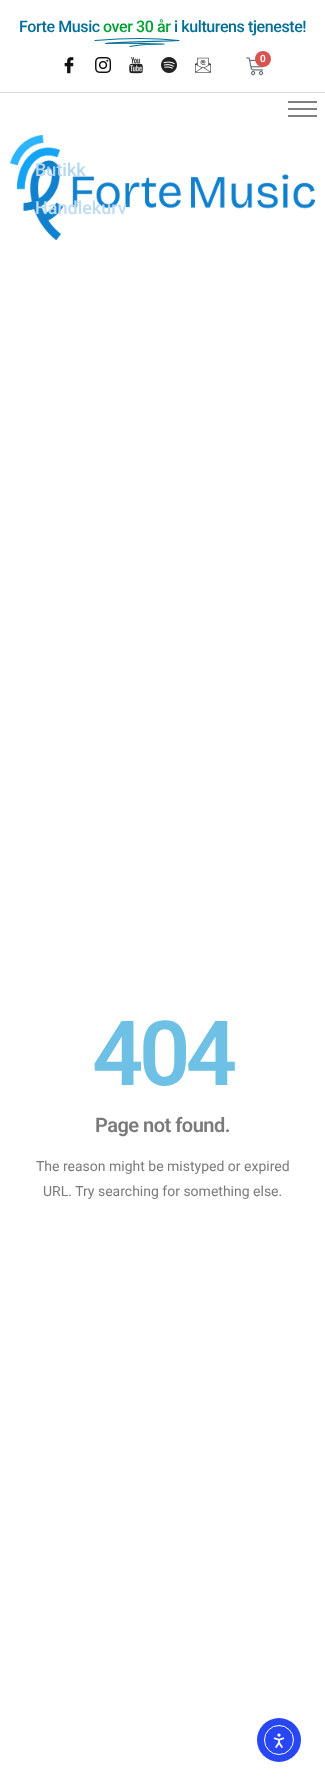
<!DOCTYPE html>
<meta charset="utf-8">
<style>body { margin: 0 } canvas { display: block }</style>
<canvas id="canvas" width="325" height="1786"></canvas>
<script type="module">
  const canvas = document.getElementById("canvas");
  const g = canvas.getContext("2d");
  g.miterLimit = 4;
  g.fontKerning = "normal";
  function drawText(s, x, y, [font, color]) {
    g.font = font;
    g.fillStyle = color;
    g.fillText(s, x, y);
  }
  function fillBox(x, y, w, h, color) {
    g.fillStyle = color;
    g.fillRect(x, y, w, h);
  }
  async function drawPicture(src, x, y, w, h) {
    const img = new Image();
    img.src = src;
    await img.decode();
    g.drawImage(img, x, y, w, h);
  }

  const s1 = ["500 16px Roboto", "#006F97"];
  const s2 = ["500 16px Roboto", "#00A236"];
  const s3 = ["600 10px Roboto", "#FFFFFF"];
  const s4 = ["500 18px Roboto", "#B4D7F0"];
  const s5 = ["500 18px Roboto", "#BEDDF2"];
  const s6 = ["600 90px Roboto", "#6EC1E4"];
  const s7 = ["600 20px Roboto", "#7A7A7A"];
  const s8 = ["14px Roboto", "#7A7A7A"];

  fillBox(0, 0, 325, 1786, "#FFFFFF");
  fillBox(0, 92, 325, 1, "#D4D6E3");
  g.letterSpacing = "-0.4px";
  drawText("Forte Music", 19, 32, s1);
  drawText("over 30 år", 103, 32, s2);
  g.beginPath();
  g.moveTo(95, 40.5);
  g.bezierCurveTo(123, 38, 151.5, 37.5, 179, 40.5);
  g.bezierCurveTo(159.5, 41.5, 125, 41.5, 105.5, 43.5);
  g.bezierCurveTo(120, 43, 150, 43.5, 164, 44);
  g.bezierCurveTo(154.5, 44.5, 140.5, 44, 130, 46.5);
  g.strokeStyle = "#006F97";
  g.lineWidth = 1.1;
  g.lineCap = "round";
  g.lineJoin = "round";
  g.stroke();
  drawText("i kulturens tjeneste!", 174, 32, s1);
  await drawPicture("pic1.png", 64, 57, 10, 17);
  await drawPicture("pic2.png", 95, 57, 17, 16);
  await drawPicture("pic3.png", 129, 57, 14, 17);
  await drawPicture("pic4.png", 161, 57, 16, 16);
  await drawPicture("pic5.png", 195, 57, 16, 16);
  await drawPicture("pic6.png", 246, 57, 18, 19);
  g.fillStyle = "#D9534F";
  g.beginPath();
  g.arc(263, 59, 8, 0, Math.PI * 2);
  g.fill();
  g.letterSpacing = "0px";
  drawText("0", 260, 62, s3);
  await drawPicture("pic7.png", 10, 135, 305, 105);
  fillBox(288, 101, 29, 2, "#808080");
  fillBox(288, 108, 29, 2, "#808080");
  fillBox(288, 115, 29, 2, "#808080");
  drawText("Butikk", 35, 176, s4);
  drawText("Handlekurv", 35, 214, s5);
  g.letterSpacing = "-4.5px";
  drawText("404", 92, 1085, s6);
  g.letterSpacing = "-0.5px";
  drawText("Page not found.", 95, 1132, s7);
  g.letterSpacing = "0px";
  drawText("The reason might be mistyped or expired", 36, 1171, s8);
  drawText("URL. Try searching for something else.", 43, 1196, s8);
  g.fillStyle = "#2847F3";
  g.beginPath();
  g.arc(279, 1740, 22, 0, Math.PI * 2);
  g.fill();
  g.beginPath();
  g.arc(279, 1740, 14.5, 0, Math.PI * 2);
  g.strokeStyle = "#FFFFFF";
  g.lineWidth = 1;
  g.stroke();
  await drawPicture("pic8.png", 273, 1733, 12, 15);
</script>
